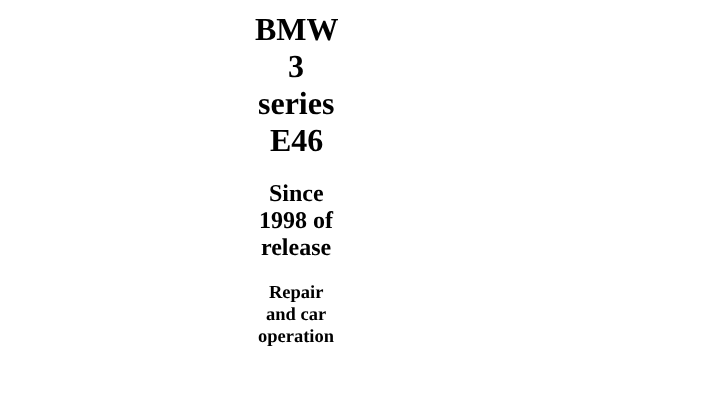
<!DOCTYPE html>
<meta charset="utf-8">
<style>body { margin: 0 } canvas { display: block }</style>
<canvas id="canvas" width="721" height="407"></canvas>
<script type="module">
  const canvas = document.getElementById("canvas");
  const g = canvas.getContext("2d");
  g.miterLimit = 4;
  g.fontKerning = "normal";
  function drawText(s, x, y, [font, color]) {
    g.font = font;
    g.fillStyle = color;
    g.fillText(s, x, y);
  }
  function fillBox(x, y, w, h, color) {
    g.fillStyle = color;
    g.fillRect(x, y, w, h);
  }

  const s1 = ["bold 32px Liberation Serif", "#000000"];
  const s2 = ["bold 24px Liberation Serif", "#000000"];
  const s3 = ["bold 18.5px Liberation Serif", "#000000"];

  fillBox(0, 0, 721, 407, "#FFFFFF");
  drawText("BMW", 255, 40, s1);
  drawText("3", 288, 77, s1);
  drawText("series", 258, 114, s1);
  drawText("E46", 270, 151, s1);
  drawText("Since", 269, 201, s2);
  drawText("1998 of", 259, 228, s2);
  drawText("release", 261, 255, s2);
  drawText("Repair", 269, 298, s3);
  drawText("and car", 266, 320, s3);
  drawText("operation", 258, 342, s3);
</script>
